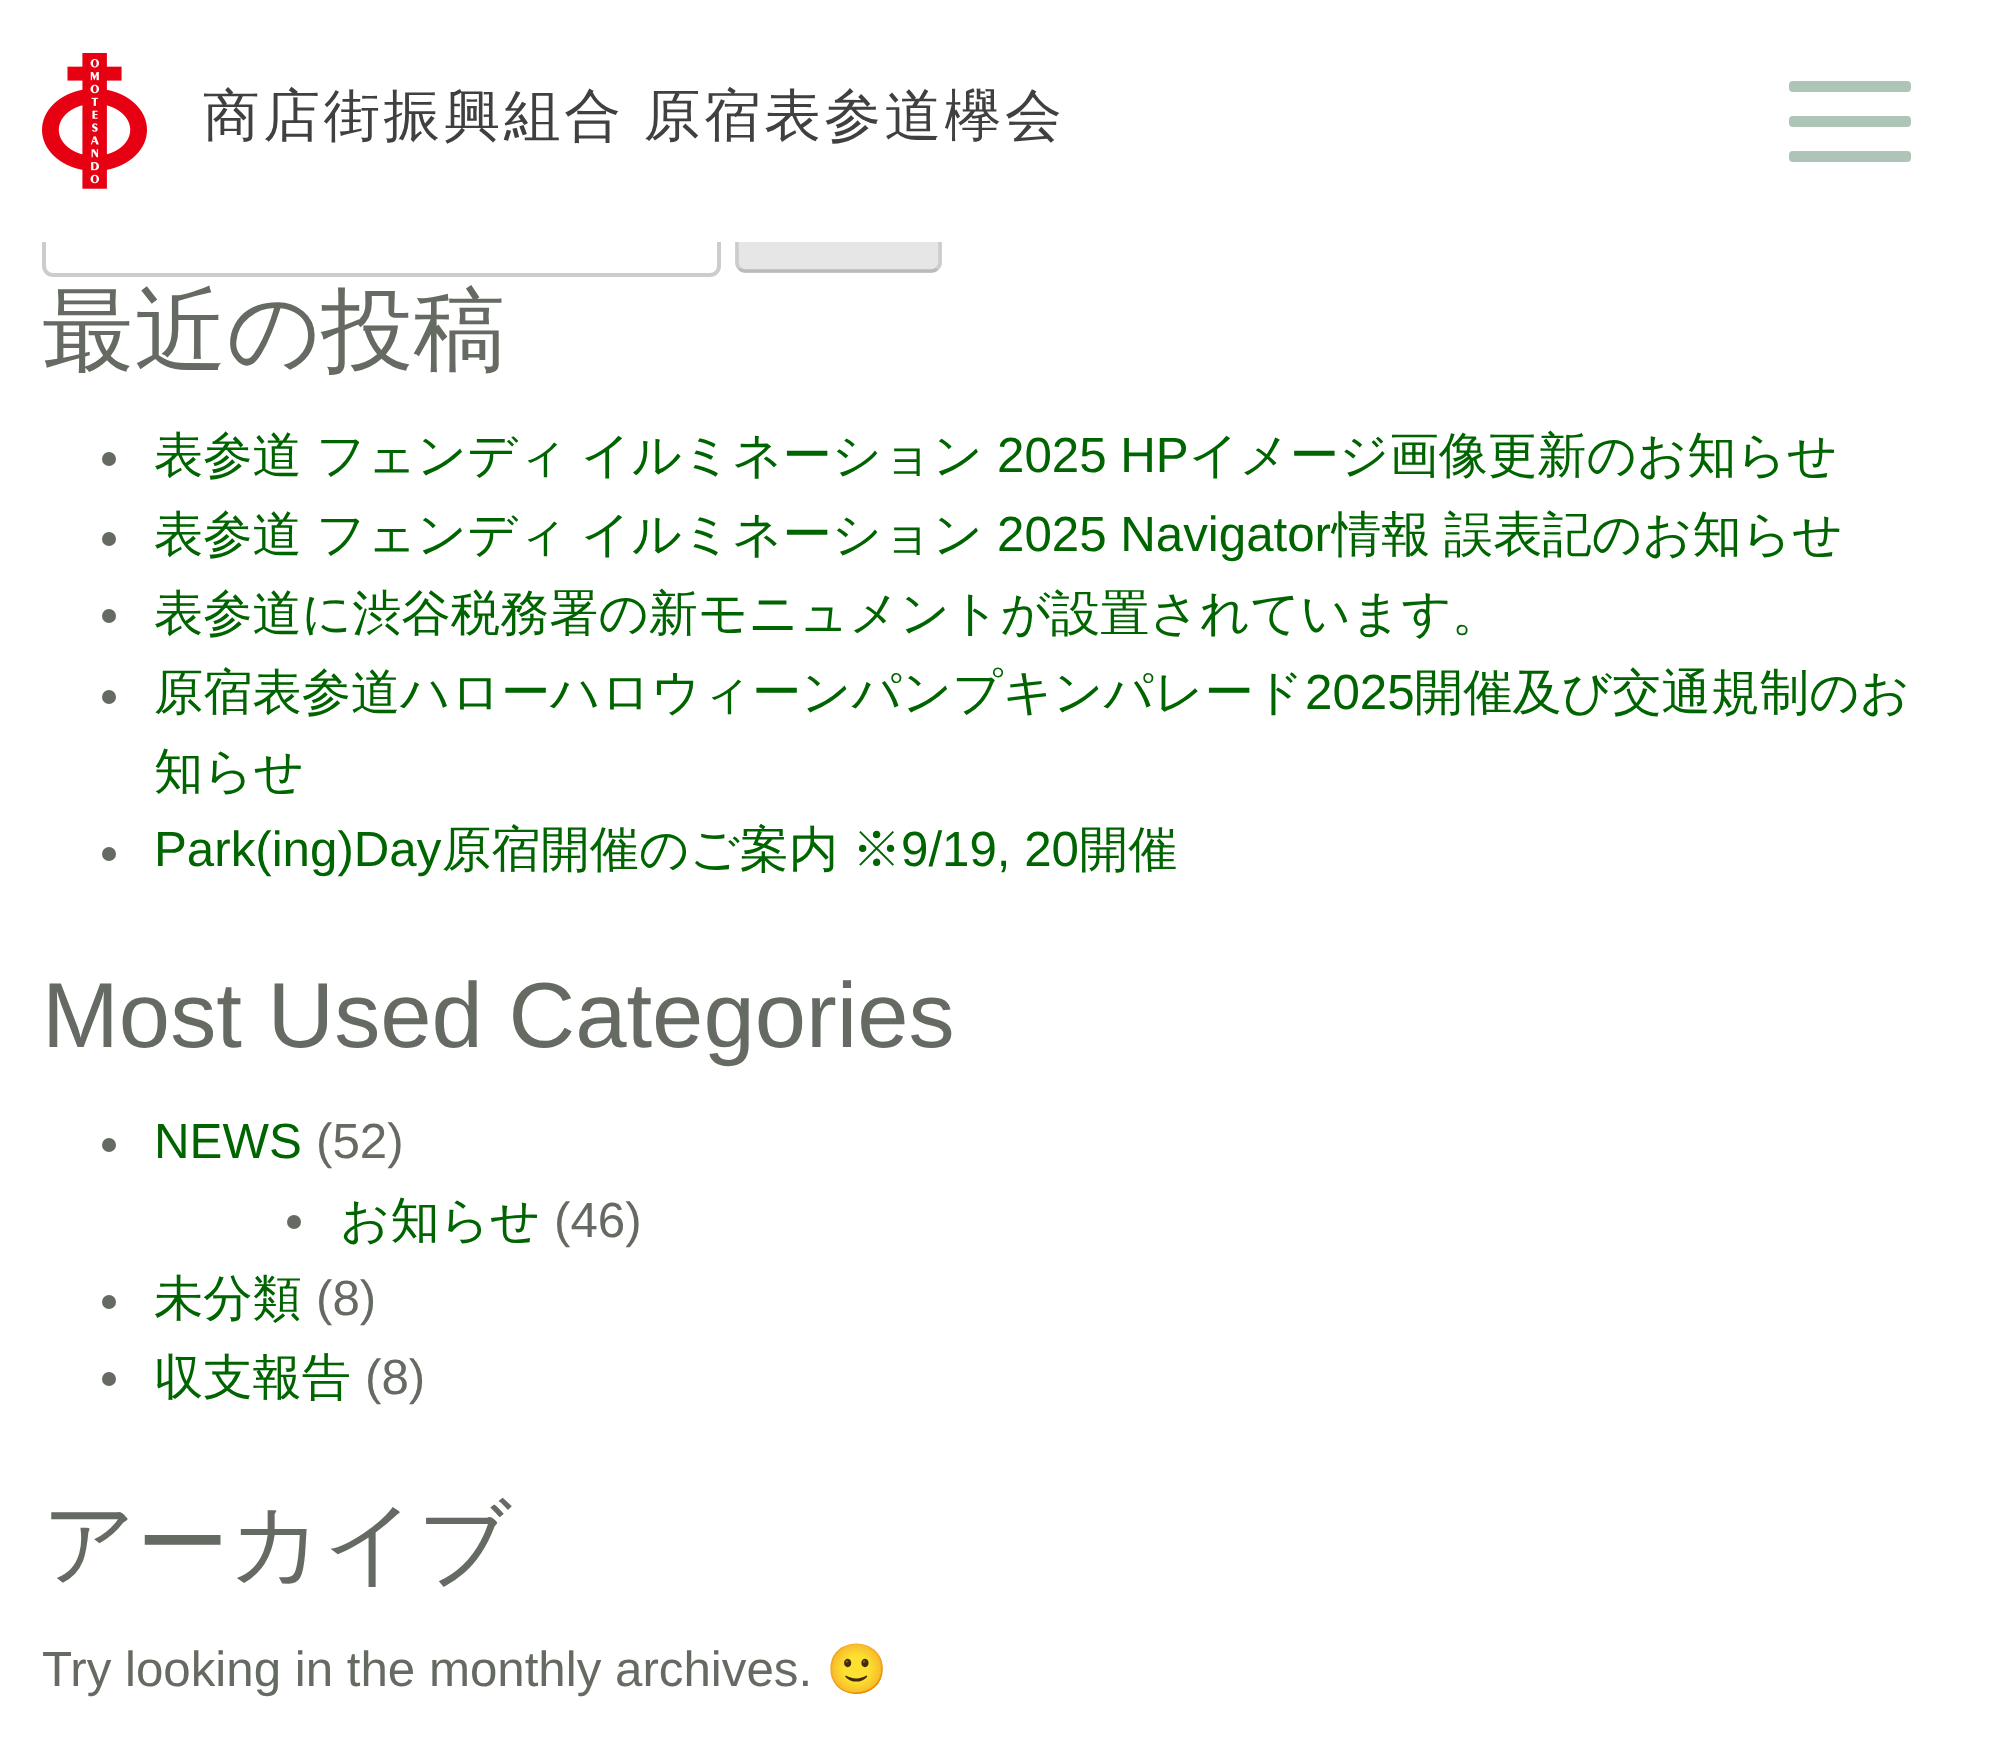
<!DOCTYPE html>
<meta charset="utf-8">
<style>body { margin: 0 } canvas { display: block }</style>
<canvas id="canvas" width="1997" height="1763"></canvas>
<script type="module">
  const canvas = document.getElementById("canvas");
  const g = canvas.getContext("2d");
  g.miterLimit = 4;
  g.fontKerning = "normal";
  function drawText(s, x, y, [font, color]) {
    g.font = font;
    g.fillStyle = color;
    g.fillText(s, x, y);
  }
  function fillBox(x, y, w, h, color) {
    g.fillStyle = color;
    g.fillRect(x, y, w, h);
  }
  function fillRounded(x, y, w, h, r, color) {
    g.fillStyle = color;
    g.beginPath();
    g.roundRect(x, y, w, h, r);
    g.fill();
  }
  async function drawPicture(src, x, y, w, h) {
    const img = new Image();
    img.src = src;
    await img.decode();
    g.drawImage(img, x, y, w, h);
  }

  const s1 = ["500 56.7px WenQuanYi Zen Hei", "#404040"];
  const s2 = ["500 92.25px WenQuanYi Zen Hei", "#656A62"];
  const s3 = ["500 49.25px WenQuanYi Zen Hei", "#006400"];
  const s4 = ["49.25px Liberation Sans", "#006400"];
  const s5 = ["92.25px Liberation Sans", "#656A62"];
  const s6 = ["49.25px Liberation Sans", "#656A62"];
  const s7 = ["49.25px Noto Color Emoji", "#656A62"];

  fillBox(0, 0, 1997, 1763, "#FFFFFF");
  g.beginPath();
  g.roundRect(44, 170, 675, 105, 9);
  g.strokeStyle = "#CCCCCC";
  g.lineWidth = 4;
  g.stroke();
  fillRounded(735, 165, 207, 108, 11, "#E6E6E6");
  g.beginPath();
  g.moveTo(937, 268.5);
  g.bezierCurveTo(935.5, 270.5, 933.5, 271, 931, 271);
  g.lineTo(745.5, 271);
  g.bezierCurveTo(743, 271, 741, 270.5, 739.5, 268.5);
  g.strokeStyle = "#BBBBBB";
  g.lineWidth = 3.5;
  g.stroke();
  g.beginPath();
  g.moveTo(739.5, 268.5);
  g.bezierCurveTo(737.5, 267, 737, 265, 737, 262.5);
  g.lineTo(737, 175);
  g.bezierCurveTo(737, 172.5, 737.5, 170.5, 739.5, 169);
  g.bezierCurveTo(741, 167, 743, 166, 745.5, 166);
  g.lineTo(931, 166);
  g.bezierCurveTo(933.5, 166, 935.5, 167, 937, 169);
  g.bezierCurveTo(939, 170.5, 940, 172.5, 940, 175);
  g.lineTo(940, 262.5);
  g.bezierCurveTo(940, 265, 939, 267, 937, 268.5);
  g.strokeStyle = "#CCCCCC";
  g.stroke();
  fillBox(42, 164, 900, 78, "#FFFFFF");
  await drawPicture("pic1.png", 42, 53, 105, 136);
  g.letterSpacing = "3.5px";
  g.wordSpacing = "-1px";
  drawText("商店街振興組合 原宿表参道欅会", 203, 135, s1);
  fillRounded(1789, 116, 122, 11, 4, "#AEC4B6");
  fillRounded(1789, 81, 122, 11, 4, "#AEC4B6");
  fillRounded(1789, 151, 122, 11, 4, "#AEC4B6");
  g.letterSpacing = "0px";
  g.wordSpacing = "0px";
  drawText("最近の投稿", 42, 362, s2);
  g.beginPath();
  g.arc(109, 459, 7, 0, Math.PI * 2);
  g.fill();
  drawText("表参道", 154, 472, s3);
  drawText("フェンディ", 316, 472, s3);
  drawText("イルミネーション", 581, 472, s3);
  drawText("2025 HP", 997, 472, s4);
  drawText("イメージ画像更新のお知らせ", 1189, 472, s3);
  g.fillStyle = "#656A62";
  g.beginPath();
  g.arc(109, 539, 7, 0, Math.PI * 2);
  g.fill();
  drawText("表参道", 154, 551, s3);
  drawText("フェンディ", 316, 551, s3);
  drawText("イルミネーション", 581, 551, s3);
  drawText("2025 Navigator", 997, 551, s4);
  drawText("情報", 1332, 551, s3);
  drawText("誤表記のお知らせ", 1444, 551, s3);
  g.fillStyle = "#656A62";
  g.beginPath();
  g.arc(109, 616, 7, 0, Math.PI * 2);
  g.fill();
  drawText("表参道に渋谷税務署の新モニュメントが設置されています。", 154, 630, s3);
  g.fillStyle = "#656A62";
  g.beginPath();
  g.arc(109, 697, 7, 0, Math.PI * 2);
  g.fill();
  drawText("原宿表参道ハローハロウィーンパンプキンパレード", 154, 709, s3);
  drawText("2025", 1305, 709, s4);
  drawText("開催及び交通規制のお", 1414, 709, s3);
  drawText("知らせ", 154, 788, s3);
  g.fillStyle = "#656A62";
  g.beginPath();
  g.arc(109, 854, 7, 0, Math.PI * 2);
  g.fill();
  drawText("Park(ing)Day", 154, 866, s4);
  drawText("原宿開催のご案内", 442, 866, s3);
  drawText("※", 852, 866, s3);
  drawText("9/19, 20", 901, 866, s4);
  drawText("開催", 1079, 866, s3);
  drawText("Most Used Categories", 42, 1047, s5);
  g.beginPath();
  g.arc(109, 1145, 7, 0, Math.PI * 2);
  g.fill();
  drawText("NEWS", 154, 1158, s4);
  drawText("(52)", 316, 1158, s6);
  g.beginPath();
  g.arc(294, 1222, 7, 0, Math.PI * 2);
  g.fill();
  drawText("お知らせ", 340, 1237, s3);
  drawText("(46)", 554, 1237, s6);
  g.beginPath();
  g.arc(109, 1302, 7, 0, Math.PI * 2);
  g.fill();
  drawText("未分類", 154, 1315, s3);
  drawText("(8)", 316, 1315, s6);
  g.beginPath();
  g.arc(109, 1379, 7, 0, Math.PI * 2);
  g.fill();
  drawText("収支報告", 154, 1394, s3);
  drawText("(8)", 365, 1394, s6);
  drawText("アーカイブ", 42, 1575, s2);
  drawText("Try looking in the monthly archives.", 42, 1686, s6);
  drawText("🙂", 826, 1686, s7);
</script>
